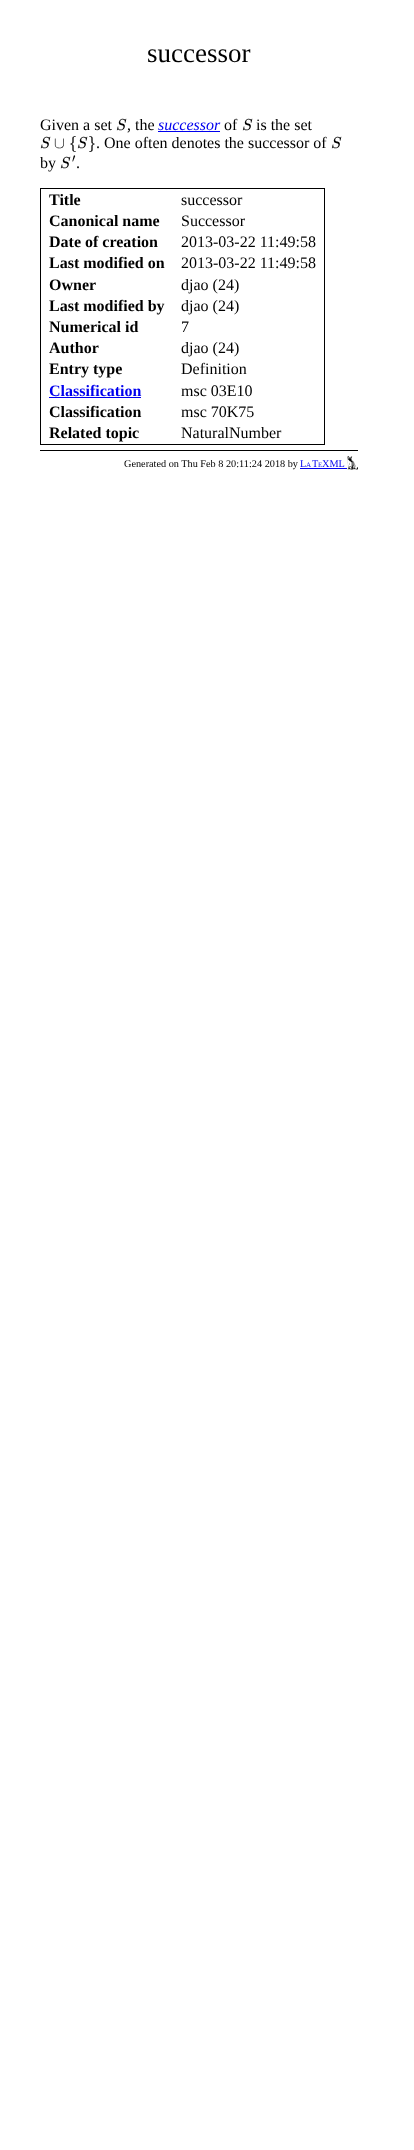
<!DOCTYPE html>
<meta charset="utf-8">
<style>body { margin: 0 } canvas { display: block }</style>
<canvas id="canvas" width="414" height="2150"></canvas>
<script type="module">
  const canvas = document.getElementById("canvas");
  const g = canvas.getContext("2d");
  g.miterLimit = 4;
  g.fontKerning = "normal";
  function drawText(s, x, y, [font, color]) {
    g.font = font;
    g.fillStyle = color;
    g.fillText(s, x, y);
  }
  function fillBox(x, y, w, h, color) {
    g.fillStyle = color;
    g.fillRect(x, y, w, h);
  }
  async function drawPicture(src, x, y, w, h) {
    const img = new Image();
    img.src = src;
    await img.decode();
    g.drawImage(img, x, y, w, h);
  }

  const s1 = ["27px Liberation Serif", "#000000"];
  const s2 = ["16px Liberation Serif", "#000000"];
  const s3 = ["italic 16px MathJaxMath", "#000000"];
  const s4 = ["italic 16px Liberation Serif", "#0000EE"];
  const s5 = ["16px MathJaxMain", "#000000"];
  const s6 = ["12px MathJaxMain", "#000000"];
  const s7 = ["bold 16px Liberation Serif", "#000000"];
  const s8 = ["bold 16px Liberation Serif", "#0000EE"];
  const s9 = ["10.25px Liberation Serif", "#000000"];
  const s10 = ["10.25px Liberation Serif", "#0000EE"];
  const s11 = ["7px Liberation Serif", "#0000EE"];

  fillBox(0, 0, 414, 2150, "#FFFFFF");
  drawText("successor", 147, 62, s1);
  drawText("Given a set", 40, 130, s2);
  drawText("S", 116, 130, s3);
  drawText(", the", 127, 130, s2);
  drawText("successor", 158, 130, s4);
  fillBox(158, 131, 62, 1, "#0000EE");
  drawText("of", 224, 130, s2);
  drawText("S", 242, 130, s3);
  drawText("is the set", 256, 130, s2);
  drawText("S", 40, 148, s3);
  drawText("∪", 54, 148, s5);
  drawText("{", 69, 148, s5);
  drawText("S", 77, 148, s3);
  drawText("}", 88, 148, s5);
  drawText(". One often denotes the successor of", 96, 148, s2);
  drawText("S", 331, 148, s3);
  drawText("by", 40, 168, s2);
  drawText("S", 60, 168, s3);
  drawText("′", 72, 162, s6);
  drawText(".", 76, 168, s2);
  fillBox(40, 188, 285, 1, "#000000");
  fillBox(324, 210, 1, 235, "#000000");
  fillBox(40, 444, 285, 1, "#000000");
  fillBox(40, 210, 1, 235, "#000000");
  fillBox(40, 188, 1, 23, "#000000");
  drawText("Title", 49, 205, s7);
  fillBox(324, 188, 1, 23, "#000000");
  drawText("successor", 181, 205, s2);
  drawText("Canonical name", 49, 226, s7);
  drawText("Successor", 181, 226, s2);
  drawText("Date of creation", 49, 247, s7);
  drawText("2013-03-22 11:49:58", 181, 247, s2);
  drawText("Last modified on", 49, 268, s7);
  drawText("2013-03-22 11:49:58", 181, 268, s2);
  drawText("Owner", 49, 290, s7);
  drawText("djao (24)", 181, 290, s2);
  drawText("Last modified by", 49, 311, s7);
  drawText("djao (24)", 181, 311, s2);
  drawText("Numerical id", 49, 332, s7);
  drawText("7", 181, 332, s2);
  drawText("Author", 49, 353, s7);
  drawText("djao (24)", 181, 353, s2);
  drawText("Entry type", 49, 374, s7);
  drawText("Definition", 181, 374, s2);
  drawText("Classification", 49, 396, s8);
  fillBox(49, 397, 92, 1, "#0000EE");
  drawText("msc 03E10", 181, 396, s2);
  drawText("Classification", 49, 417, s7);
  drawText("msc 70K75", 181, 417, s2);
  drawText("Related topic", 49, 438, s7);
  drawText("NaturalNumber", 181, 438, s2);
  fillBox(40, 450, 318, 1, "#000000");
  drawText("Generated on Thu Feb 8 20:11:24 2018 by", 124, 467, s9);
  drawText("L", 300, 467, s10);
  drawText("A", 306, 467, s11);
  fillBox(300, 468, 47, 1, "#0000EE");
  drawText("T", 312, 467, s10);
  drawText("E", 318, 467, s11);
  drawText("XML", 322, 467, s10);
  await drawPicture("pic1.png", 347, 456, 11, 14);
</script>
